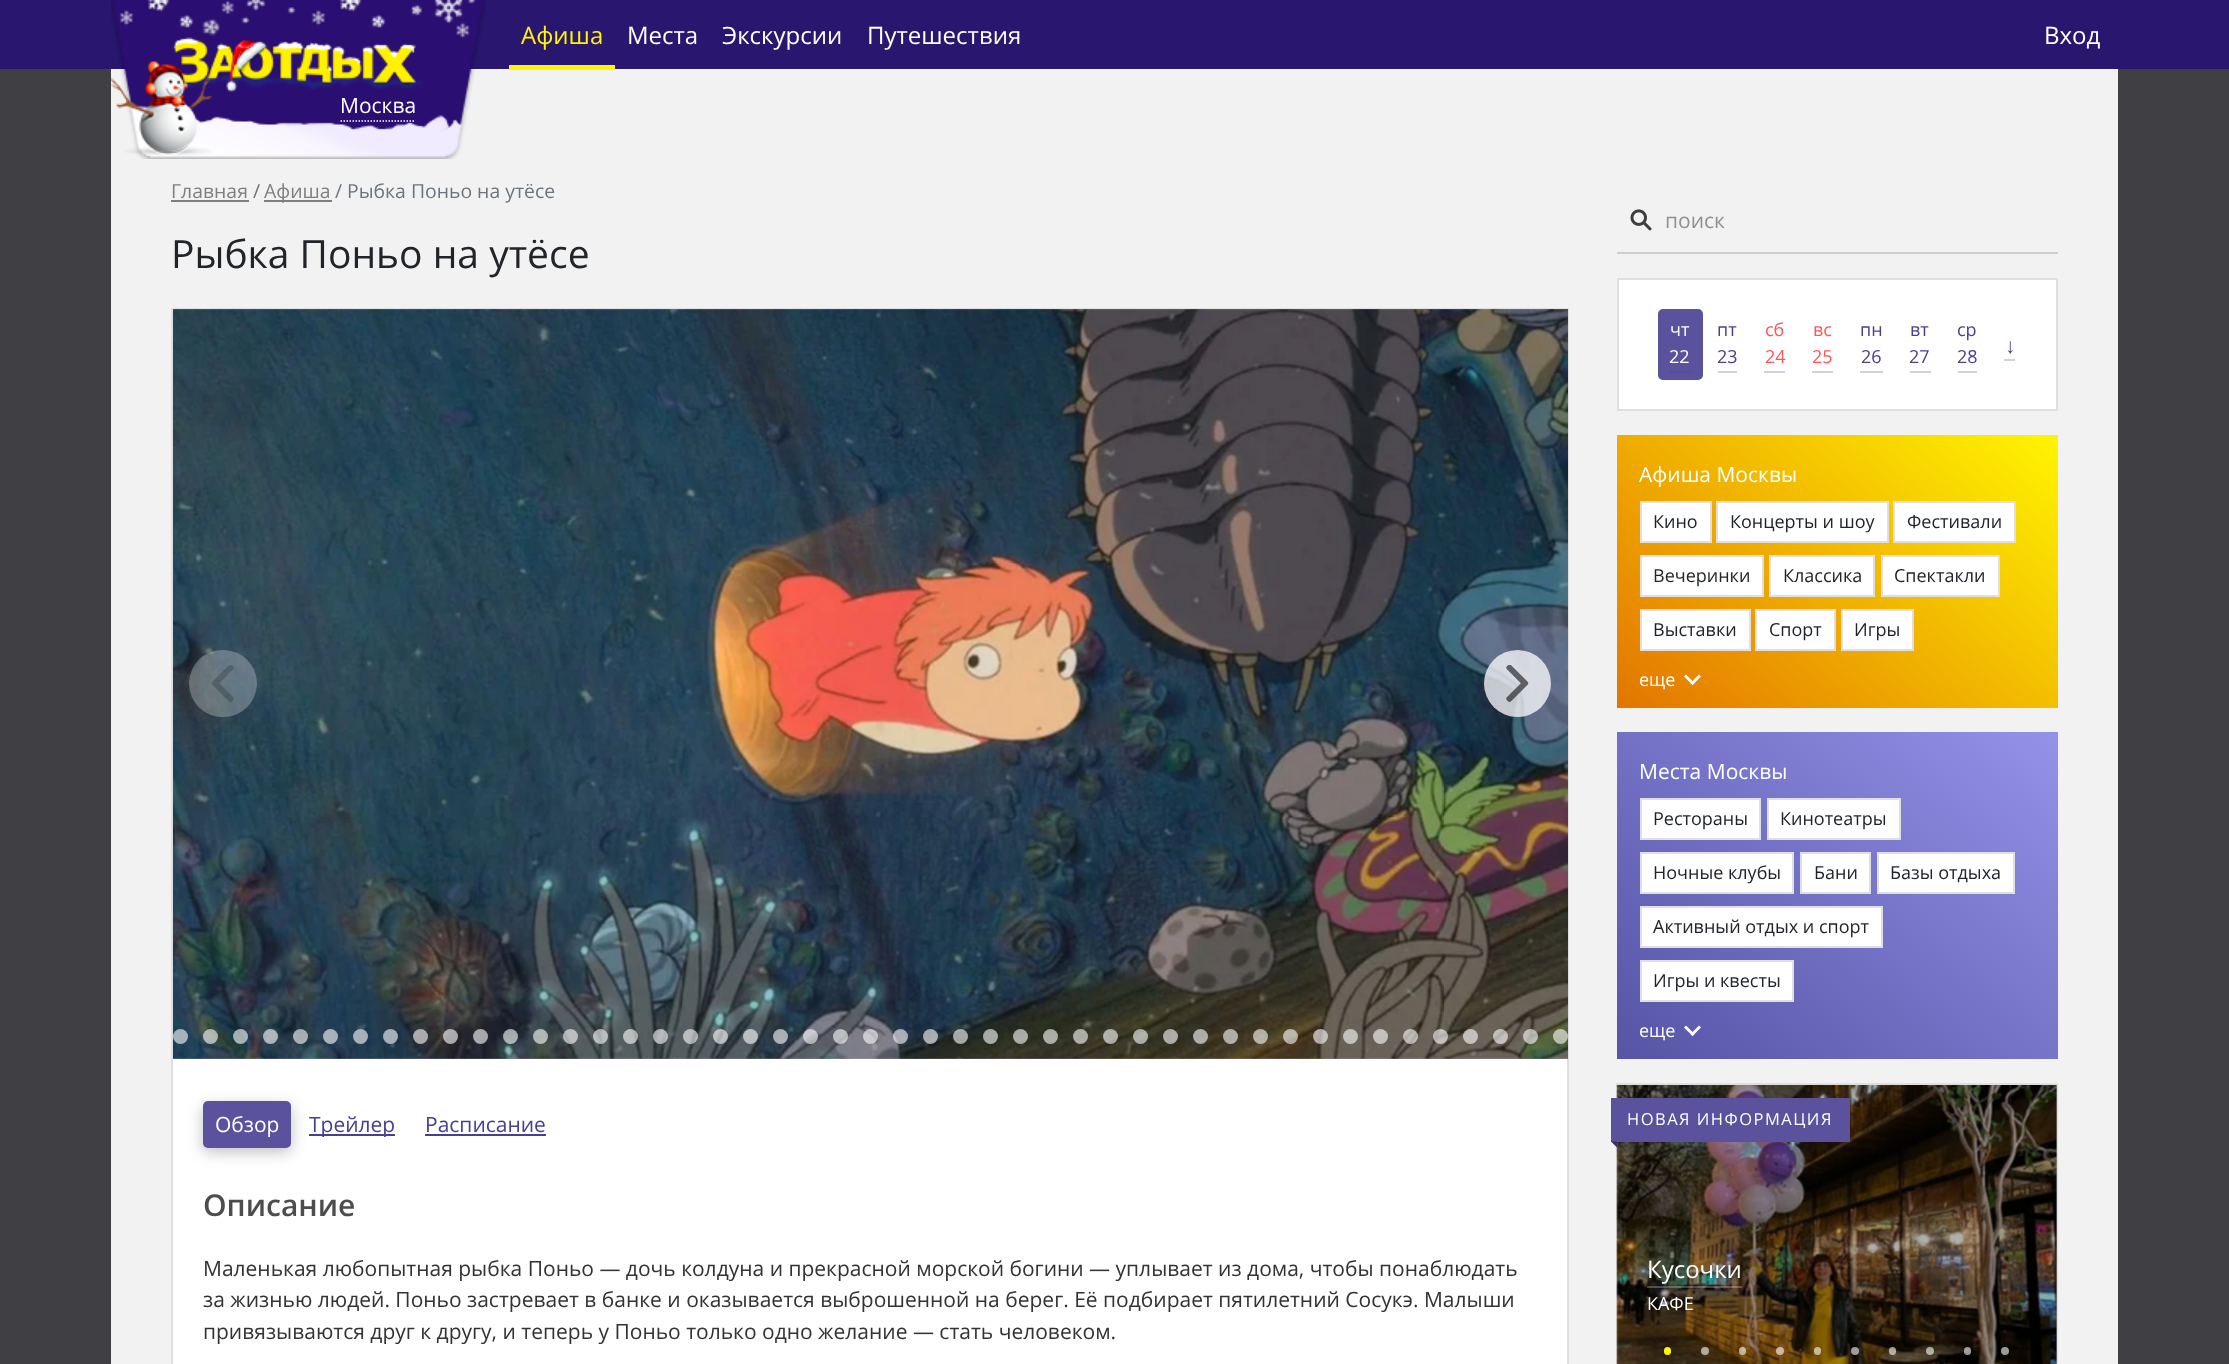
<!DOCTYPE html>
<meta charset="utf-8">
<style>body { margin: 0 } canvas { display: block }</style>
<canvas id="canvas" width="2229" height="1364"></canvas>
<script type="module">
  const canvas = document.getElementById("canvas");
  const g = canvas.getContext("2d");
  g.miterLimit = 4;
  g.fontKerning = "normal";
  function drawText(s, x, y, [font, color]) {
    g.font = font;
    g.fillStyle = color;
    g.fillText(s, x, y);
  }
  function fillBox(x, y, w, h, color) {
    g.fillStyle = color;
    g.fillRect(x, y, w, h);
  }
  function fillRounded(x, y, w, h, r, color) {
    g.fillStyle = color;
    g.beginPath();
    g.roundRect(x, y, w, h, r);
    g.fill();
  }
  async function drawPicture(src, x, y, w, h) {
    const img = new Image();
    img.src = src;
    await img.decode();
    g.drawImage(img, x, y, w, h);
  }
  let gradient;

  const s1 = ["24px Open Sans", "#FFF500"];
  const s2 = ["24px Open Sans", "#FFFFFF"];
  const s3 = ["21px Open Sans", "#FFFFFF"];
  const s4 = ["19.4px Open Sans", "#7F7F7F"];
  const s5 = ["19.4px Open Sans", "#6C757D"];
  const s6 = ["39px Open Sans", "#212529"];
  const s7 = ["21px Open Sans", "#473F94"];
  const s8 = ["600 30px Open Sans", "#4D4D4D"];
  const s9 = ["21px Open Sans", "#333333"];
  const s10 = ["21px Open Sans", "#919191"];
  const s11 = ["18px Open Sans", "#FFFFFF"];
  const s12 = ["18px Open Sans", "#473F94"];
  const s13 = ["18px Open Sans", "#FF5757"];
  const s14 = ["21px Liberation Sans", "#473F94"];
  const s15 = ["18px Open Sans", "#212529"];
  const s16 = ["16.5px Open Sans", "#FFFFFF"];

  fillBox(0, 0, 2229, 1364, "#3F3F44");
  fillBox(0, 0, 2229, 69, "#29166F");
  fillBox(111, 69, 2007, 1295, "#F2F2F2");
  fillBox(509, 65, 106, 5, "#FFF500");
  drawText("Афиша", 521, 44, s1);
  drawText("Места", 627, 44, s2);
  drawText("Экскурсии", 722, 44, s2);
  drawText("Путешествия", 867, 44, s2);
  drawText("Вход", 2044, 44, s2);
  await drawPicture("pic1.png", 111, 0, 375, 159);
  g.beginPath();
  g.moveTo(340.5, 121);
  g.lineTo(415.5, 121);
  g.strokeStyle = "#FFFFFF";
  g.lineWidth = 1.5;
  g.setLineDash([1.5, 1.5]);
  g.stroke();
  drawText("Москва", 340, 113, s3);
  drawText("Главная", 171, 198, s4);
  fillBox(171, 200, 78, 2, "#7F7F7F");
  drawText("/", 253, 198, s5);
  fillBox(264, 200, 68, 2, "#7F7F7F");
  drawText("Афиша", 264, 198, s4);
  drawText("/", 335, 198, s5);
  drawText("Рыбка Поньо на утёсе", 347, 198, s5);
  drawText("Рыбка Поньо на утёсе", 171, 268, s6);
  fillBox(173, 1058, 1394, 306, "#FFFFFF");
  g.strokeStyle = "#DFDFDF";
  g.lineWidth = 2;
  g.setLineDash([]);
  g.strokeRect(172, 309, 1396, 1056);
  await drawPicture("pic2.png", 173, 309, 1395, 750);
  await drawPicture("pic3.png", 173, 309, 1395, 750);
  fillRounded(189, 650, 68, 67, 33.5, "rgba(255, 255, 255, 0.26)");
  await drawPicture("pic4.png", 211, 665, 23, 37);
  g.fillStyle = "rgba(255, 255, 255, 0.75)";
  g.beginPath();
  g.arc(1517.5, 683.5, 33.5, 0, Math.PI * 2);
  g.fill();
  await drawPicture("pic5.png", 1506, 665, 23, 37);
  g.fillStyle = "rgba(255, 255, 255, 0.6)";
  g.beginPath();
  g.arc(180.5, 1036.5, 7.5, 0, Math.PI * 2);
  g.fill();
  g.beginPath();
  g.arc(210.5, 1036.5, 7.5, 0, Math.PI * 2);
  g.fill();
  g.beginPath();
  g.arc(240.5, 1036.5, 7.5, 0, Math.PI * 2);
  g.fill();
  g.beginPath();
  g.arc(270.5, 1036.5, 7.5, 0, Math.PI * 2);
  g.fill();
  g.beginPath();
  g.arc(300.5, 1036.5, 7.5, 0, Math.PI * 2);
  g.fill();
  g.beginPath();
  g.arc(330.5, 1036.5, 7.5, 0, Math.PI * 2);
  g.fill();
  g.beginPath();
  g.arc(360.5, 1036.5, 7.5, 0, Math.PI * 2);
  g.fill();
  g.beginPath();
  g.arc(390.5, 1036.5, 7.5, 0, Math.PI * 2);
  g.fill();
  g.beginPath();
  g.arc(420.5, 1036.5, 7.5, 0, Math.PI * 2);
  g.fill();
  g.beginPath();
  g.arc(450.5, 1036.5, 7.5, 0, Math.PI * 2);
  g.fill();
  g.beginPath();
  g.arc(480.5, 1036.5, 7.5, 0, Math.PI * 2);
  g.fill();
  g.beginPath();
  g.arc(510.5, 1036.5, 7.5, 0, Math.PI * 2);
  g.fill();
  g.beginPath();
  g.arc(540.5, 1036.5, 7.5, 0, Math.PI * 2);
  g.fill();
  g.beginPath();
  g.arc(570.5, 1036.5, 7.5, 0, Math.PI * 2);
  g.fill();
  g.beginPath();
  g.arc(600.5, 1036.5, 7.5, 0, Math.PI * 2);
  g.fill();
  g.beginPath();
  g.arc(630.5, 1036.5, 7.5, 0, Math.PI * 2);
  g.fill();
  g.beginPath();
  g.arc(660.5, 1036.5, 7.5, 0, Math.PI * 2);
  g.fill();
  g.beginPath();
  g.arc(690.5, 1036.5, 7.5, 0, Math.PI * 2);
  g.fill();
  g.beginPath();
  g.arc(720.5, 1036.5, 7.5, 0, Math.PI * 2);
  g.fill();
  g.beginPath();
  g.arc(750.5, 1036.5, 7.5, 0, Math.PI * 2);
  g.fill();
  g.beginPath();
  g.arc(780.5, 1036.5, 7.5, 0, Math.PI * 2);
  g.fill();
  g.beginPath();
  g.arc(810.5, 1036.5, 7.5, 0, Math.PI * 2);
  g.fill();
  g.beginPath();
  g.arc(840.5, 1036.5, 7.5, 0, Math.PI * 2);
  g.fill();
  g.beginPath();
  g.arc(870.5, 1036.5, 7.5, 0, Math.PI * 2);
  g.fill();
  g.beginPath();
  g.arc(900.5, 1036.5, 7.5, 0, Math.PI * 2);
  g.fill();
  g.beginPath();
  g.arc(930.5, 1036.5, 7.5, 0, Math.PI * 2);
  g.fill();
  g.beginPath();
  g.arc(960.5, 1036.5, 7.5, 0, Math.PI * 2);
  g.fill();
  g.beginPath();
  g.arc(990.5, 1036.5, 7.5, 0, Math.PI * 2);
  g.fill();
  g.beginPath();
  g.arc(1020.5, 1036.5, 7.5, 0, Math.PI * 2);
  g.fill();
  g.beginPath();
  g.arc(1050.5, 1036.5, 7.5, 0, Math.PI * 2);
  g.fill();
  g.beginPath();
  g.arc(1080.5, 1036.5, 7.5, 0, Math.PI * 2);
  g.fill();
  g.beginPath();
  g.arc(1110.5, 1036.5, 7.5, 0, Math.PI * 2);
  g.fill();
  g.beginPath();
  g.arc(1140.5, 1036.5, 7.5, 0, Math.PI * 2);
  g.fill();
  g.beginPath();
  g.arc(1170.5, 1036.5, 7.5, 0, Math.PI * 2);
  g.fill();
  g.beginPath();
  g.arc(1200.5, 1036.5, 7.5, 0, Math.PI * 2);
  g.fill();
  g.beginPath();
  g.arc(1230.5, 1036.5, 7.5, 0, Math.PI * 2);
  g.fill();
  g.beginPath();
  g.arc(1260.5, 1036.5, 7.5, 0, Math.PI * 2);
  g.fill();
  g.beginPath();
  g.arc(1290.5, 1036.5, 7.5, 0, Math.PI * 2);
  g.fill();
  g.beginPath();
  g.arc(1320.5, 1036.5, 7.5, 0, Math.PI * 2);
  g.fill();
  g.beginPath();
  g.arc(1350.5, 1036.5, 7.5, 0, Math.PI * 2);
  g.fill();
  g.beginPath();
  g.arc(1380.5, 1036.5, 7.5, 0, Math.PI * 2);
  g.fill();
  g.beginPath();
  g.arc(1410.5, 1036.5, 7.5, 0, Math.PI * 2);
  g.fill();
  g.beginPath();
  g.arc(1440.5, 1036.5, 7.5, 0, Math.PI * 2);
  g.fill();
  g.beginPath();
  g.arc(1470.5, 1036.5, 7.5, 0, Math.PI * 2);
  g.fill();
  g.beginPath();
  g.arc(1500.5, 1036.5, 7.5, 0, Math.PI * 2);
  g.fill();
  g.beginPath();
  g.arc(1530.5, 1036.5, 7.5, 0, Math.PI * 2);
  g.fill();
  g.beginPath();
  g.arc(1560.5, 1036.5, 7.5, 0, Math.PI * 2);
  g.fill();
  g.fillStyle = "rgba(0, 0, 0, 0.25)";
  g.filter = "blur(7.5px)";
  g.beginPath();
  g.roundRect(203, 1106, 88, 46, 5);
  g.fill();
  g.filter = "none";
  fillRounded(203, 1101, 88, 47, 5, "#5A529D");
  drawText("Обзор", 215, 1132, s3);
  fillBox(309, 1134, 86, 2, "#473F94");
  drawText("Трейлер", 309, 1132, s7);
  drawText("Расписание", 425, 1132, s7);
  fillBox(425, 1134, 121, 2, "#473F94");
  drawText("Описание", 203, 1216, s8);
  drawText("Маленькая любопытная рыбка Поньо — дочь колдуна и прекрасной морской богини — уплывает из дома, чтобы понаблюдать", 203, 1276, s9);
  drawText("за жизнью людей. Поньо застревает в банке и оказывается выброшенной на берег. Её подбирает пятилетний Сосукэ. Малыши", 203, 1307, s9);
  drawText("привязываются друг к другу, и теперь у Поньо только одно желание — стать человеком.", 203, 1339, s9);
  await drawPicture("pic6.png", 1630, 209, 22, 22);
  fillBox(1617, 252, 441, 2, "#CECECE");
  drawText("поиск", 1665, 228, s10);
  g.fillStyle = "#FFFFFF";
  g.beginPath();
  g.rect(1618, 279, 439, 131);
  g.fill();
  g.stroke();
  fillRounded(1658, 309, 45, 71, 5, "#5A529D");
  drawText("чт", 1670, 336, s11);
  fillBox(1670, 371, 21, 2, "#554D9B");
  drawText("22", 1669, 363, s11);
  drawText("пт", 1717, 336, s12);
  fillBox(1718, 371, 19, 2, "#D1CFE4");
  drawText("23", 1717, 363, s12);
  drawText("сб", 1765, 336, s13);
  fillBox(1764, 371, 21, 2, "#D1CFE4");
  drawText("24", 1765, 363, s13);
  drawText("вс", 1813, 336, s13);
  fillBox(1812, 371, 21, 2, "#D1CFE4");
  drawText("25", 1812, 363, s13);
  drawText("пн", 1860, 336, s12);
  fillBox(1860, 371, 23, 2, "#D1CFE4");
  drawText("26", 1861, 363, s12);
  drawText("вт", 1910, 336, s12);
  fillBox(1910, 371, 21, 2, "#D1CFE4");
  drawText("27", 1909, 363, s12);
  drawText("ср", 1957, 336, s12);
  fillBox(1958, 371, 19, 2, "#D1CFE4");
  drawText("28", 1957, 363, s12);
  drawText("↓", 2005, 353, s14);
  fillBox(2004, 359, 11, 2, "#D1CFE4");
  gradient = g.createLinearGradient(1996, 383, 1679, 760);
  gradient.addColorStop(0, "#FFF500");
  gradient.addColorStop(1, "#E37501");
  g.fillStyle = gradient;
  g.fillRect(1617, 435, 441, 273);
  drawText("Афиша Москвы", 1639, 482, s3);
  g.beginPath();
  g.rect(1641, 502, 70, 40);
  g.fill();
  g.stroke();
  drawText("Кино", 1653, 528, s15);
  g.fillStyle = "#FFFFFF";
  g.beginPath();
  g.rect(1717, 502, 171, 40);
  g.fill();
  g.stroke();
  drawText("Концерты и шоу", 1730, 528, s15);
  g.fillStyle = "#FFFFFF";
  g.beginPath();
  g.rect(1894, 502, 121, 40);
  g.fill();
  g.stroke();
  drawText("Фестивали", 1907, 528, s15);
  g.fillStyle = "#FFFFFF";
  g.beginPath();
  g.rect(1641, 556, 122, 40);
  g.fill();
  g.stroke();
  drawText("Вечеринки", 1653, 582, s15);
  g.fillStyle = "#FFFFFF";
  g.beginPath();
  g.rect(1770, 556, 104, 40);
  g.fill();
  g.stroke();
  drawText("Классика", 1783, 582, s15);
  g.fillStyle = "#FFFFFF";
  g.beginPath();
  g.rect(1882, 556, 117, 40);
  g.fill();
  g.stroke();
  drawText("Спектакли", 1894, 582, s15);
  g.fillStyle = "#FFFFFF";
  g.beginPath();
  g.rect(1641, 610, 109, 40);
  g.fill();
  g.stroke();
  drawText("Выставки", 1653, 636, s15);
  g.fillStyle = "#FFFFFF";
  g.beginPath();
  g.rect(1756, 610, 79, 40);
  g.fill();
  g.stroke();
  drawText("Спорт", 1769, 636, s15);
  g.fillStyle = "#FFFFFF";
  g.beginPath();
  g.rect(1842, 610, 71, 40);
  g.fill();
  g.stroke();
  drawText("Игры", 1854, 636, s15);
  drawText("еще", 1639, 686, s11);
  g.beginPath();
  g.moveTo(1699, 674.5);
  g.lineTo(1701, 676.5);
  g.lineTo(1692.5, 685);
  g.lineTo(1690.5, 683);
  g.closePath();
  g.fill();
  g.beginPath();
  g.moveTo(1686, 674.5);
  g.lineTo(1694.5, 683);
  g.lineTo(1692.5, 685);
  g.lineTo(1684, 676.5);
  g.closePath();
  g.fill();
  gradient = g.createLinearGradient(2009, 691, 1666, 1100);
  gradient.addColorStop(0, "#9492E9");
  gradient.addColorStop(1, "#5654A5");
  g.fillStyle = gradient;
  g.fillRect(1617, 732, 441, 327);
  drawText("Места Москвы", 1639, 779, s3);
  g.beginPath();
  g.rect(1641, 799, 119, 40);
  g.fill();
  g.stroke();
  drawText("Рестораны", 1653, 825, s15);
  g.fillStyle = "#FFFFFF";
  g.beginPath();
  g.rect(1768, 799, 132, 40);
  g.fill();
  g.stroke();
  drawText("Кинотеатры", 1780, 825, s15);
  g.fillStyle = "#FFFFFF";
  g.beginPath();
  g.rect(1641, 853, 152, 40);
  g.fill();
  g.stroke();
  drawText("Ночные клубы", 1653, 879, s15);
  g.fillStyle = "#FFFFFF";
  g.beginPath();
  g.rect(1801, 853, 69, 40);
  g.fill();
  g.stroke();
  drawText("Бани", 1814, 879, s15);
  g.fillStyle = "#FFFFFF";
  g.beginPath();
  g.rect(1878, 853, 136, 40);
  g.fill();
  g.stroke();
  drawText("Базы отдыха", 1890, 879, s15);
  g.fillStyle = "#FFFFFF";
  g.beginPath();
  g.rect(1641, 907, 241, 40);
  g.fill();
  g.stroke();
  drawText("Активный отдых и спорт", 1653, 933, s15);
  g.fillStyle = "#FFFFFF";
  g.beginPath();
  g.rect(1641, 961, 152, 40);
  g.fill();
  g.stroke();
  drawText("Игры и квесты", 1653, 987, s15);
  drawText("еще", 1639, 1037, s11);
  g.beginPath();
  g.moveTo(1699, 1025.5);
  g.lineTo(1701, 1027.5);
  g.lineTo(1692.5, 1036);
  g.lineTo(1690.5, 1034);
  g.closePath();
  g.fill();
  g.beginPath();
  g.moveTo(1686, 1025.5);
  g.lineTo(1694.5, 1034);
  g.lineTo(1692.5, 1036);
  g.lineTo(1684, 1027.5);
  g.closePath();
  g.fill();
  g.strokeRect(1617, 1084, 440, 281);
  await drawPicture("pic7.png", 1616, 1085, 441, 279);
  fillBox(1617, 1085, 440, 279, "rgba(0, 0, 0, 0.3)");
  fillBox(1611, 1098, 239, 44, "#5A529D");
  g.letterSpacing = "1.5px";
  drawText("НОВАЯ ИНФОРМАЦИЯ", 1627, 1125, s16);
  g.fillStyle = "#36315E";
  g.beginPath();
  g.moveTo(1617, 1141.5);
  g.lineTo(1617, 1147.5);
  g.lineTo(1611, 1141.5);
  g.closePath();
  g.fill();
  g.letterSpacing = "0px";
  drawText("Кусочки", 1647, 1278, s2);
  fillBox(1647, 1286, 95, 2, "rgba(255, 255, 255, 0.25)");
  drawText("КАФЕ", 1647, 1310, s11);
  fillRounded(1664, 1347, 7, 8, 3.5, "#FFF500");
  g.fillStyle = "rgba(255, 255, 255, 0.6)";
  g.beginPath();
  g.arc(1705, 1351, 4, 0, Math.PI * 2);
  g.fill();
  fillRounded(1739, 1347, 7, 8, 3.5, "rgba(255, 255, 255, 0.6)");
  g.beginPath();
  g.arc(1780, 1351, 4, 0, Math.PI * 2);
  g.fill();
  fillRounded(1814, 1347, 7, 8, 3.5, "rgba(255, 255, 255, 0.6)");
  g.beginPath();
  g.arc(1855, 1351, 4, 0, Math.PI * 2);
  g.fill();
  fillRounded(1889, 1347, 7, 8, 3.5, "rgba(255, 255, 255, 0.6)");
  g.beginPath();
  g.arc(1930, 1351, 4, 0, Math.PI * 2);
  g.fill();
  fillRounded(1964, 1347, 7, 8, 3.5, "rgba(255, 255, 255, 0.6)");
  g.beginPath();
  g.arc(2005, 1351, 4, 0, Math.PI * 2);
  g.fill();
</script>
